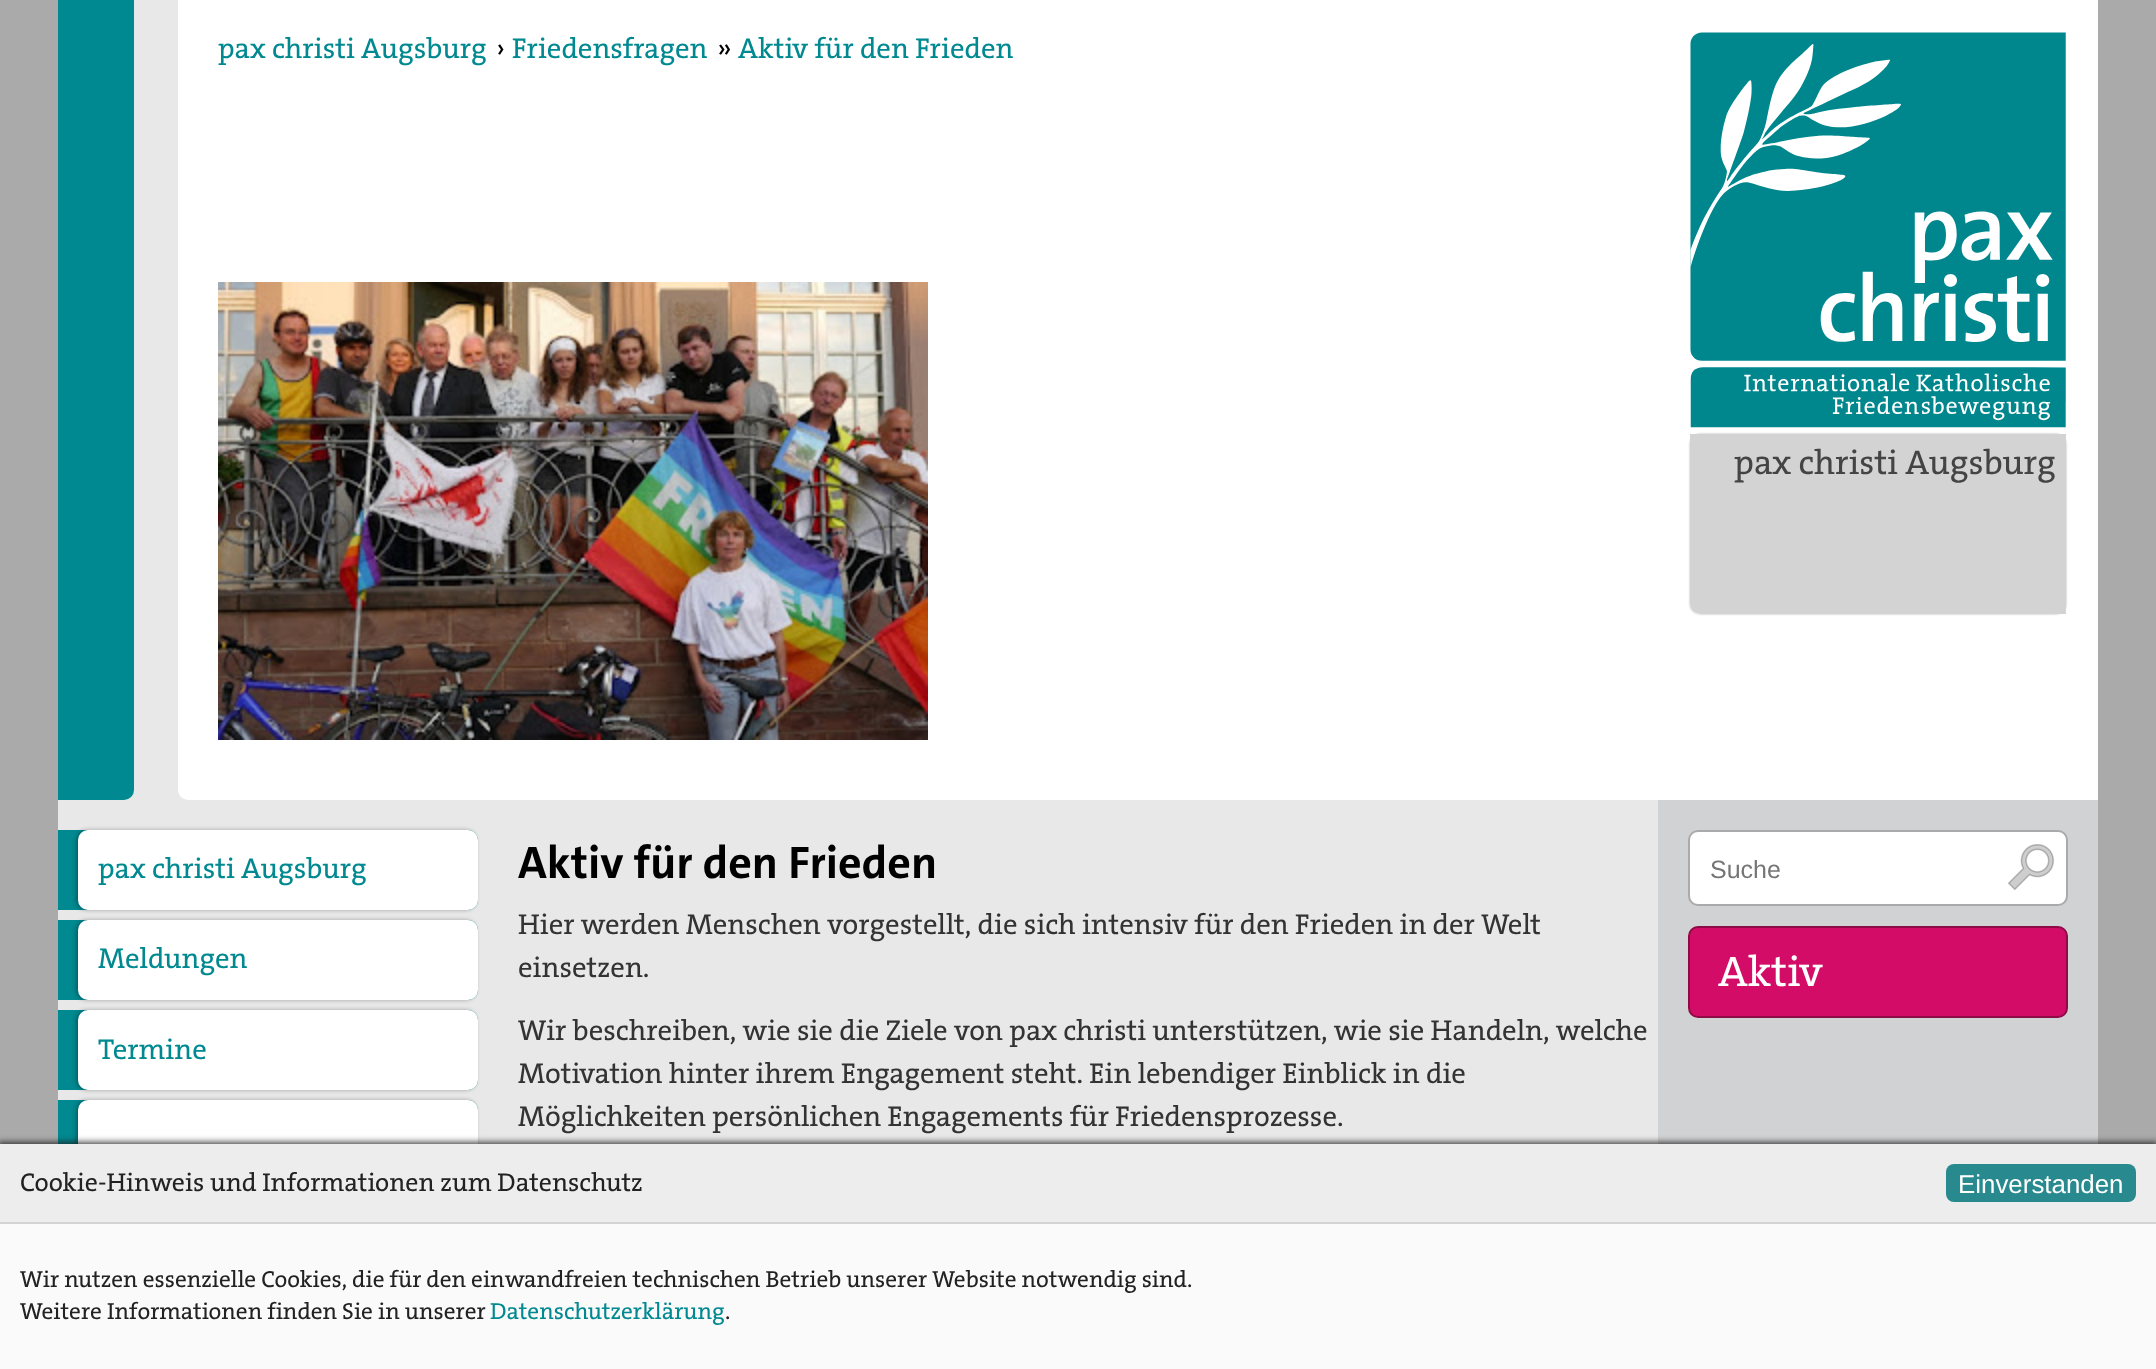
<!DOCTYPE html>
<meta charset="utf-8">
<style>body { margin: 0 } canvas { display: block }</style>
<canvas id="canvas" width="2156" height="1369"></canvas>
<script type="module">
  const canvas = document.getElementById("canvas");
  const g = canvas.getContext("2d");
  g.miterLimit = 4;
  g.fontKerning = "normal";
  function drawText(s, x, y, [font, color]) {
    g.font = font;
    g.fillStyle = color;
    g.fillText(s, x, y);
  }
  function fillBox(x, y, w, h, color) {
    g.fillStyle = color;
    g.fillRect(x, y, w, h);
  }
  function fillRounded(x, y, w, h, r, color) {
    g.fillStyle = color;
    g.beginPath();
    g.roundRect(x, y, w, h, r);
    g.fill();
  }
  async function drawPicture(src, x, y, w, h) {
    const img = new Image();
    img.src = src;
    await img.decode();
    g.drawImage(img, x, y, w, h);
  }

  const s1 = ["500 28.8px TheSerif", "#008990"];
  const s2 = ["500 28.8px TheSerif", "#000000"];
  const s3 = ["500 34.5px TheSerif", "#444444"];
  const s4 = ["bold 46px 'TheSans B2'", "#000000"];
  const s5 = ["500 28.8px TheSerif", "#333333"];
  const s6 = ["25px Liberation Sans", "#757575"];
  const s7 = ["500 43px TheSerif", "#FFFFFF"];
  const s8 = ["500 25.9px TheSerif", "#222222"];
  const s9 = ["25.9px Liberation Sans", "#FFFFFF"];
  const s10 = ["500 23.33px TheSerif", "#222222"];
  const s11 = ["500 23.33px TheSerif", "#008990"];

  fillBox(0, 0, 2156, 1369, "#AAAAAA");
  fillBox(58, 0, 1600, 1144, "#E8E8E8");
  g.fillStyle = "#FFFFFF";
  g.beginPath();
  g.roundRect(178, 0, 1920, 800, [0, 0, 0, 10]);
  g.fill();
  g.fillStyle = "#008990";
  g.beginPath();
  g.roundRect(58, 0, 76, 800, [0, 0, 10, 0]);
  g.fill();
  drawText("pax christi Augsburg", 218, 58, s1);
  drawText("›", 496, 58, s2);
  drawText("Friedensfragen", 512, 58, s1);
  drawText("»", 717, 58, s2);
  drawText("Aktiv für den Frieden", 738, 58, s1);
  await drawPicture("pic1.png", 218, 282, 710, 458);
  await drawPicture("pic2.png", 1690, 32, 376, 396);
  g.save();
  g.beginPath();
  g.moveTo(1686, 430);
  g.lineTo(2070, 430);
  g.lineTo(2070, 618);
  g.lineTo(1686, 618);
  g.closePath();
  g.moveTo(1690, 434);
  g.lineTo(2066, 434);
  g.lineTo(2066, 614);
  g.lineTo(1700, 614);
  g.bezierCurveTo(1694.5, 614, 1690, 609.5, 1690, 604);
  g.closePath();
  g.clip("evenodd");
  g.fillStyle = "rgba(0, 0, 0, 0.3)";
  g.filter = "blur(1px)";
  g.beginPath();
  g.roundRect(1690, 434, 376, 180, 10);
  g.fill();
  g.filter = "none";
  g.restore();
  g.fillStyle = "rgba(200, 200, 200, 0.8)";
  g.beginPath();
  g.roundRect(1690, 434, 376, 180, [0, 0, 0, 10]);
  g.fill();
  drawText("pax christi Augsburg", 1734, 474, s3);
  g.fillStyle = "#008990";
  g.beginPath();
  g.roundRect(58, 830, 420, 80, [0, 10, 10, 0]);
  g.fill();
  g.fillStyle = "rgba(0, 0, 0, 0.3)";
  g.filter = "blur(2px)";
  g.beginPath();
  g.roundRect(76, 830, 400, 80, 10);
  g.fill();
  g.filter = "none";
  fillRounded(78, 830, 400, 80, 10, "#FFFFFF");
  drawText("pax christi Augsburg", 98, 878, s1);
  g.beginPath();
  g.roundRect(58, 920, 420, 80, [0, 10, 10, 0]);
  g.fill();
  g.fillStyle = "rgba(0, 0, 0, 0.3)";
  g.filter = "blur(2px)";
  g.beginPath();
  g.roundRect(76, 920, 400, 80, 10);
  g.fill();
  g.filter = "none";
  fillRounded(78, 920, 400, 80, 10, "#FFFFFF");
  drawText("Meldungen", 98, 968, s1);
  g.beginPath();
  g.roundRect(58, 1010, 420, 80, [0, 10, 10, 0]);
  g.fill();
  g.fillStyle = "rgba(0, 0, 0, 0.3)";
  g.filter = "blur(2px)";
  g.beginPath();
  g.roundRect(76, 1010, 400, 80, 10);
  g.fill();
  g.filter = "none";
  fillRounded(78, 1010, 400, 80, 10, "#FFFFFF");
  drawText("Termine", 98, 1059, s1);
  g.beginPath();
  g.roundRect(58, 1100, 420, 82, [0, 10, 10, 0]);
  g.fill();
  g.fillStyle = "rgba(0, 0, 0, 0.3)";
  g.filter = "blur(2px)";
  g.beginPath();
  g.roundRect(76, 1100, 400, 82, 10);
  g.fill();
  g.filter = "none";
  fillRounded(78, 1100, 400, 82, 10, "#FFFFFF");
  drawText("Aktiv für den Frieden", 518, 878, s4);
  drawText("Hier werden Menschen vorgestellt, die sich intensiv für den Frieden in der Welt", 518, 934, s5);
  drawText("einsetzen.", 518, 977, s5);
  drawText("Wir beschreiben, wie sie die Ziele von pax christi unterstützen, wie sie Handeln, welche", 518, 1040, s5);
  drawText("Motivation hinter ihrem Engagement steht. Ein lebendiger Einblick in die", 518, 1083, s5);
  drawText("Möglichkeiten persönlichen Engagements für Friedensprozesse.", 518, 1126, s5);
  fillBox(1658, 800, 440, 344, "#D1D2D3");
  g.fillStyle = "#FFFFFF";
  g.beginPath();
  g.roundRect(1689, 831, 378, 74, 9);
  g.fill();
  g.strokeStyle = "#AAAAAA";
  g.lineWidth = 2;
  g.stroke();
  drawText("Suche", 1710, 878, s6);
  await drawPicture("pic3.png", 2007, 844, 47, 47);
  g.fillStyle = "#D30C67";
  g.beginPath();
  g.roundRect(1689, 927, 378, 90, 9);
  g.fill();
  g.strokeStyle = "#8E0B47";
  g.stroke();
  drawText("Aktiv", 1718, 986, s7);
  g.fillStyle = "rgba(25, 25, 25, 0.8)";
  g.filter = "blur(3px)";
  g.beginPath();
  g.rect(-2, 1142, 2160, 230);
  g.fill();
  g.filter = "none";
  fillBox(0, 1224, 2156, 145, "#FAFAFA");
  fillBox(0, 1144, 2156, 78, "#EDEDED");
  fillBox(0, 1222, 2156, 2, "#D4D4D4");
  drawText("Cookie-Hinweis und Informationen zum Datenschutz", 20, 1191, s8);
  fillRounded(1946, 1164, 190, 38, 8, "#28898F");
  drawText("Einverstanden", 1958, 1193, s9);
  drawText("Wir nutzen essenzielle Cookies, die für den einwandfreien technischen Betrieb unserer Website notwendig sind.", 20, 1287, s10);
  drawText("Weitere Informationen finden Sie in unserer", 20, 1319, s10);
  drawText("Datenschutzerklärung", 490, 1319, s11);
  drawText(".", 725, 1319, s10);
</script>
